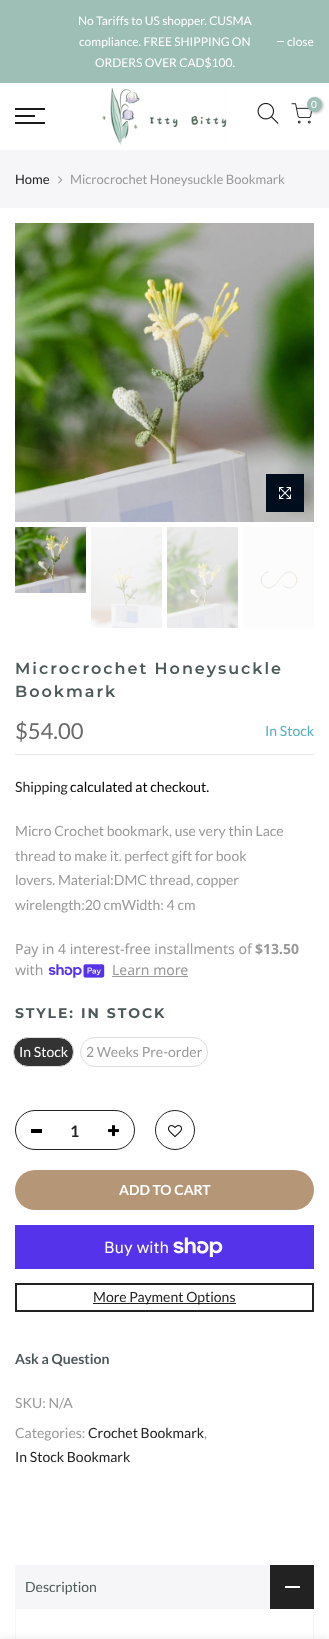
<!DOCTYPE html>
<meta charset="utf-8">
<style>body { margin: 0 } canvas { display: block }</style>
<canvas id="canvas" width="329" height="1639"></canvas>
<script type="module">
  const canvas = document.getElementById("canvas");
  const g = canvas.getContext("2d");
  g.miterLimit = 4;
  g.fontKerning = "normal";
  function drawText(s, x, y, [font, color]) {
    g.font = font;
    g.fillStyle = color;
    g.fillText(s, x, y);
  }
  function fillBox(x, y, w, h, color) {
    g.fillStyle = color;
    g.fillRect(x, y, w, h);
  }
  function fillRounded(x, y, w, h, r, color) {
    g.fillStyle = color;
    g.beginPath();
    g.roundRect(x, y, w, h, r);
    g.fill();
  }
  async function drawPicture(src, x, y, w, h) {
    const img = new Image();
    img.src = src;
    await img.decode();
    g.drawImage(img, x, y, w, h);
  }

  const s1 = ["12px Lato", "#FFFFFF"];
  const s2 = ["10px Lato", "#FFFFFF"];
  const s3 = ["13px Lato", "#222222"];
  const s4 = ["13px Lato", "#999999"];
  const s5 = ["600 16px Montserrat", "#4D5959"];
  const s6 = ["22px Lato", "#696969"];
  const s7 = ["14px Lato", "#4EB0BE"];
  const s8 = ["14px Lato", "#222222"];
  const s9 = ["14px Lato", "#000000"];
  const s10 = ["14px Lato", "#999999"];
  const s11 = ["14px Noto Sans", "#999999"];
  const s12 = ["bold 14px Noto Sans", "#999999"];
  const s13 = ["bold 14px Montserrat", "#4D5959"];
  const s14 = ["14px Lato", "#FFFFFF"];
  const s15 = ["bold 16px Lato", "#222222"];
  const s16 = ["bold 14px Lato", "#FFFFFF"];
  const s17 = ["16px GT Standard", "#FFFFFF"];
  const s18 = ["bold 14px Lato", "#4D5959"];
  const s19 = ["14px Lato", "#4D5959"];

  fillBox(0, 0, 329, 1639, "#FFFFFF");
  fillBox(0, 0, 329, 83, "#9EBFB5");
  drawText("No Tariffs to US shopper. CUSMA", 78, 25, s1);
  drawText("compliance. FREE SHIPPING ON", 79, 46, s1);
  drawText("ORDERS OVER CAD$100.", 95, 67, s1);
  fillBox(277, 41, 7, 1, "#FFFFFF");
  drawText("close", 287, 46, s1);
  await drawPicture("pic1.png", 102, 88, 125, 57);
  await drawPicture("pic2.png", 257, 102, 22, 22);
  await drawPicture("pic3.png", 291, 103, 21, 21);
  g.fillStyle = "rgba(0, 0, 0, 0.3)";
  g.filter = "blur(1.5px)";
  g.beginPath();
  g.roundRect(308, 98, 15, 15, 7.5);
  g.fill();
  g.filter = "none";
  g.fillStyle = "#9EBFB5";
  g.beginPath();
  g.arc(314.5, 104.5, 7.5, 0, Math.PI * 2);
  g.fill();
  drawText("0", 311, 108, s2);
  fillBox(15, 108, 30, 2, "#1A1A1A");
  fillBox(15, 115, 20, 2, "#1A1A1A");
  fillBox(15, 122, 30, 2, "#1A1A1A");
  fillBox(0, 150, 329, 58, "#F6F6F8");
  drawText("Home", 15, 184, s3);
  await drawPicture("pic4.png", 58, 176, 5, 8);
  drawText("Microcrochet Honeysuckle Bookmark", 70, 184, s4);
  await drawPicture("pic5.png", 15, 223, 299, 299);
  fillBox(266, 474, 38, 38, "#000D1D");
  await drawPicture("pic6.png", 279, 487, 12, 12);
  await drawPicture("pic7.png", 15, 527, 71, 66);
  await drawPicture("pic8.png", 91, 527, 71, 101);
  await drawPicture("pic9.png", 167, 527, 71, 101);
  fillBox(243, 527, 71, 101, "#FCFCFC");
  g.beginPath();
  g.moveTo(268.5, 572);
  g.bezierCurveTo(266.5, 572, 264.5, 573, 263, 575);
  g.bezierCurveTo(258, 581.5, 264.5, 590.5, 271.5, 587.5);
  g.bezierCurveTo(278, 584.5, 283, 570, 291, 572);
  g.bezierCurveTo(292.5, 572.5, 294, 573.5, 295, 575);
  g.bezierCurveTo(301, 582.5, 291.5, 592.5, 283.5, 585.5);
  g.strokeStyle = "#E9E0D6";
  g.lineWidth = 0.8;
  g.stroke();
  g.letterSpacing = "2px";
  drawText("Microcrochet Honeysuckle", 15, 674, s5);
  drawText("Bookmark", 15, 697, s5);
  fillBox(15, 754, 299, 1, "#E5E5E5");
  g.letterSpacing = "0px";
  drawText("$54.00", 15, 739, s6);
  drawText("In Stock", 265, 736, s7);
  drawText("Shipping", 15, 792, s8);
  drawText("calculated at checkout.", 70, 792, s9);
  drawText("Micro Crochet bookmark, use very thin Lace", 15, 836, s10);
  drawText("thread to make it. perfect gift for book", 15, 861, s10);
  drawText("lovers. Material:DMC thread, copper", 15, 885, s10);
  drawText("wirelength:20 cmWidth: 4 cm", 15, 910, s10);
  drawText("Pay in 4 interest-free installments of", 15, 954, s11);
  drawText("$13.50", 255, 954, s12);
  drawText("with", 15, 975, s11);
  await drawPicture("pic10.png", 48, 964, 57, 14);
  drawText("Learn more", 112, 975, s11);
  fillBox(112, 976, 76, 1, "#999999");
  g.letterSpacing = "2px";
  drawText("STYLE: IN STOCK", 15, 1018, s13);
  g.fillStyle = "#333333";
  g.beginPath();
  g.roundRect(13.5, 1037.5, 60, 29, 14.5);
  g.fill();
  g.strokeStyle = "#DDDDDD";
  g.lineWidth = 1;
  g.stroke();
  g.letterSpacing = "0px";
  drawText("In Stock", 19, 1057, s14);
  g.beginPath();
  g.roundRect(80.5, 1037.5, 127, 29, 14.5);
  g.stroke();
  drawText("2 Weeks Pre-order", 86, 1057, s10);
  g.beginPath();
  g.roundRect(15.5, 1110.5, 119, 39, 19.5);
  g.strokeStyle = "#222222";
  g.stroke();
  fillBox(31, 1129, 11, 4, "#000000");
  await drawPicture("pic11.png", 108, 1125, 11, 12);
  drawText("1", 70, 1137, s15);
  g.beginPath();
  g.arc(175, 1130, 19.5, 0, Math.PI * 2);
  g.stroke();
  await drawPicture("pic12.png", 168, 1125, 14, 12);
  g.beginPath();
  g.moveTo(169, 1137);
  g.bezierCurveTo(165.5, 1133.5, 165.5, 1128.5, 169, 1125);
  g.strokeStyle = "#FFFFFF";
  g.stroke();
  fillRounded(15, 1170, 299, 40, 20, "#B59677");
  drawText("ADD TO CART", 119, 1195, s16);
  fillBox(15, 1225, 299, 44, "#5433EB");
  drawText("Buy with", 104, 1253, s17);
  await drawPicture("pic13.png", 173, 1237, 50, 20);
  g.strokeStyle = "#222222";
  g.lineWidth = 2;
  g.strokeRect(16, 1284, 297, 27);
  fillBox(93, 1303, 143, 1, "#222222");
  drawText("More Payment Options", 93, 1302, s8);
  drawText("Ask a Question", 15, 1364, s18);
  drawText("SKU: N/A", 15, 1408, s10);
  drawText("Categories:", 15, 1438, s10);
  drawText("Crochet Bookmark", 88, 1438, s8);
  drawText(",", 204, 1438, s10);
  drawText("In Stock Bookmark", 15, 1462, s8);
  fillBox(15, 1565, 255, 44, "#F6F6F8");
  drawText("Description", 25, 1592, s19);
  fillBox(270, 1565, 44, 44, "#222222");
  fillBox(285, 1586, 15, 2, "#FFFFFF");
  fillBox(313, 1609, 1, 30, "#F5F5F5");
  fillBox(15, 1609, 1, 30, "#F5F5F5");
  g.fillStyle = "rgba(0, 0, 0, 0.12)";
  g.filter = "blur(4.5px)";
  g.beginPath();
  g.rect(0, 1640, 329, 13);
  g.fill();
  g.filter = "none";
</script>
